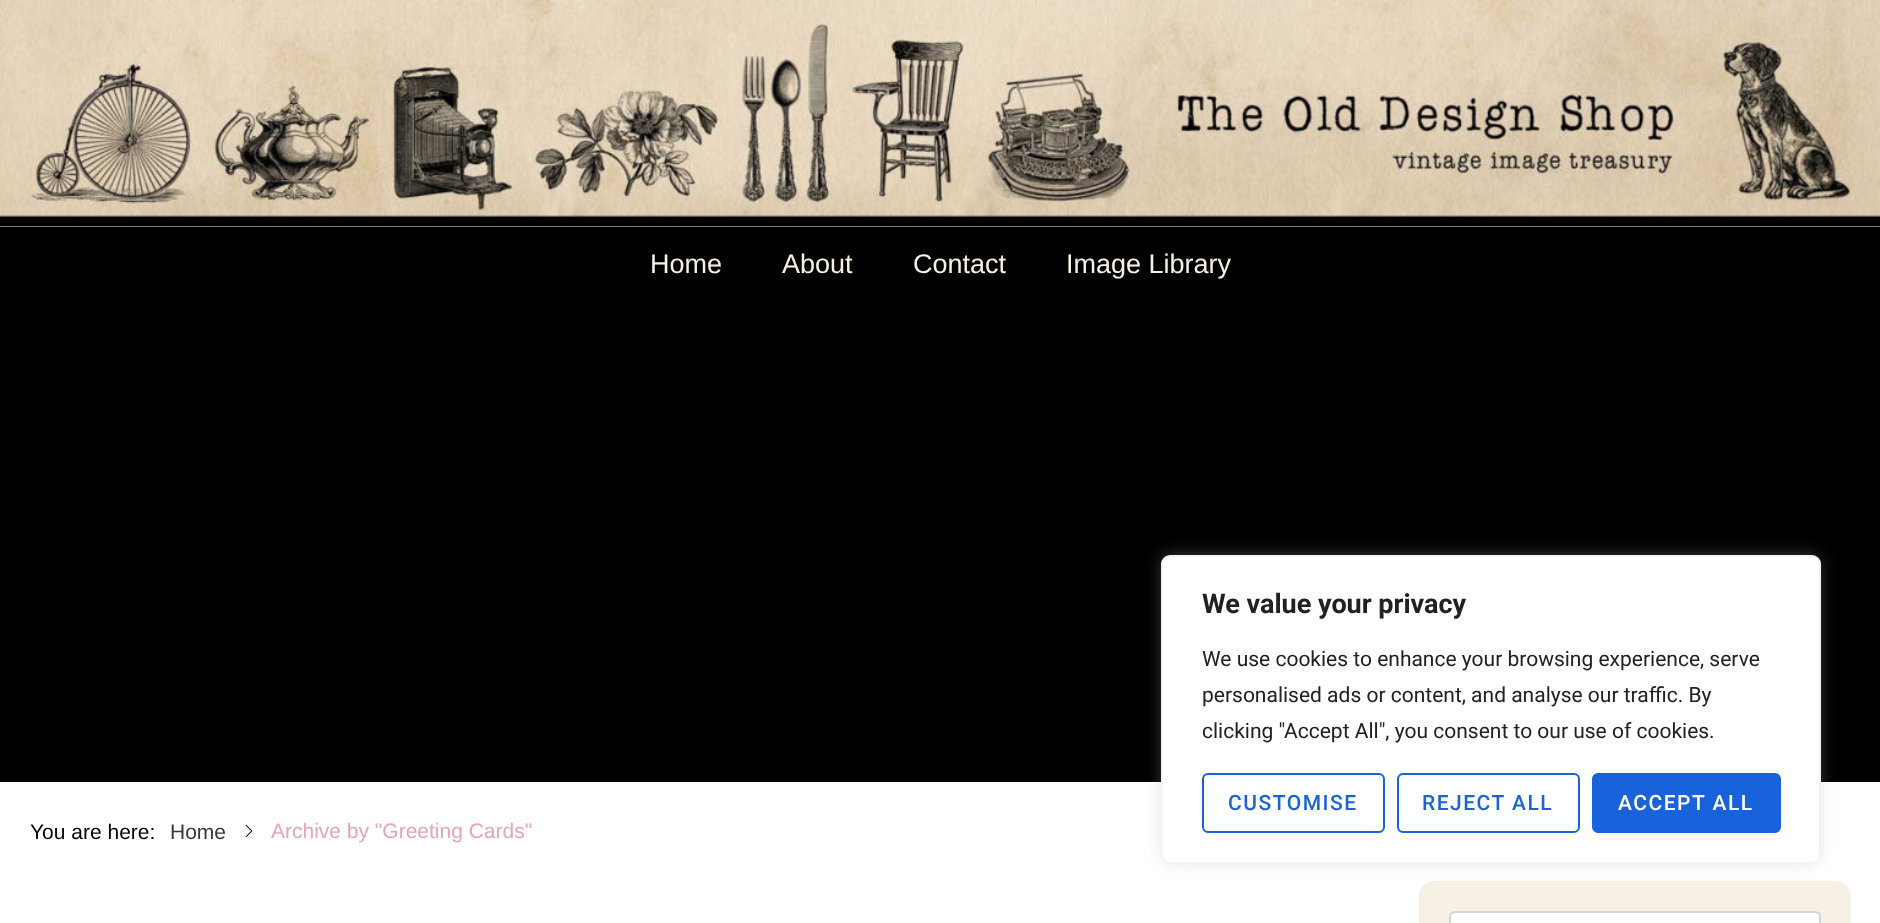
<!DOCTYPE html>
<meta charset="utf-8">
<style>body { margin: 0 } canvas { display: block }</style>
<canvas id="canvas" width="1880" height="923"></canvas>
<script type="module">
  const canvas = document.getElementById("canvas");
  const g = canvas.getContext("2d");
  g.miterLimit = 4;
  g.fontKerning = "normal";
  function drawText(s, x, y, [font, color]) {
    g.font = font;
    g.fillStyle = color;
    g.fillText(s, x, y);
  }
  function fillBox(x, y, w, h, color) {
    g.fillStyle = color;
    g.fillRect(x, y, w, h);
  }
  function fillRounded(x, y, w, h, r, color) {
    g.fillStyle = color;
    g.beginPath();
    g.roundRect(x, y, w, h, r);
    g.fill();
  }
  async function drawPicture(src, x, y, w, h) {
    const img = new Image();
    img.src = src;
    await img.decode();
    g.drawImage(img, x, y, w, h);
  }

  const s1 = ["27px Liberation Sans", "#F6F0E5"];
  const s2 = ["21px Liberation Sans", "#000000"];
  const s3 = ["21px Liberation Sans", "#3C3531"];
  const s4 = ["21px Liberation Sans", "#E6A5B7"];
  const s5 = ["bold 27px Roboto", "#212121"];
  const s6 = ["21px Roboto", "#212121"];
  const s7 = ["500 21px Roboto", "#1863DC"];
  const s8 = ["500 21px Roboto", "#FFFFFF"];

  fillBox(0, 0, 1880, 923, "#FFFFFF");
  await drawPicture("pic1.png", 0, 0, 1880, 227);
  fillBox(0, 227, 1880, 555, "#000000");
  drawText("Home", 650, 273, s1);
  drawText("About", 782, 273, s1);
  drawText("Contact", 913, 273, s1);
  drawText("Image Library", 1066, 273, s1);
  drawText("You are here:", 30, 839, s2);
  drawText("Home", 170, 839, s3);
  await drawPicture("pic2.png", 245, 825, 8, 12);
  drawText("Archive by \"Greeting Cards\"", 271, 838, s4);
  fillRounded(1419, 881, 432, 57, 15, "#F6F0E5");
  g.fillStyle = "#FFFFFF";
  g.beginPath();
  g.roundRect(1450, 912, 370, 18, 5);
  g.fill();
  g.strokeStyle = "#D1D5DB";
  g.lineWidth = 2;
  g.stroke();
  g.fillStyle = "rgba(172, 171, 171, 0.3)";
  g.filter = "blur(7.5px)";
  g.beginPath();
  g.roundRect(1161, 554, 660, 309, 9);
  g.fill();
  g.filter = "none";
  g.fillStyle = "#FFFFFF";
  g.beginPath();
  g.roundRect(1162, 556, 658, 307, 8);
  g.fill();
  g.strokeStyle = "#F4F4F4";
  g.stroke();
  drawText("We value your privacy", 1202, 613, s5);
  drawText("We use cookies to enhance your browsing experience, serve", 1202, 666, s6);
  drawText("personalised ads or content, and analyse our traffic. By", 1202, 702, s6);
  drawText("clicking \"Accept All\", you consent to our use of cookies.", 1202, 738, s6);
  g.beginPath();
  g.roundRect(1203, 774, 181, 58, 5);
  g.strokeStyle = "#1863DC";
  g.stroke();
  g.letterSpacing = "1.5px";
  drawText("CUSTOMISE", 1228, 810, s7);
  g.beginPath();
  g.roundRect(1398, 774, 181, 58, 5);
  g.stroke();
  drawText("REJECT ALL", 1422, 810, s7);
  g.beginPath();
  g.roundRect(1593, 774, 187, 58, 5);
  g.fill();
  g.stroke();
  drawText("ACCEPT ALL", 1618, 810, s8);
</script>
